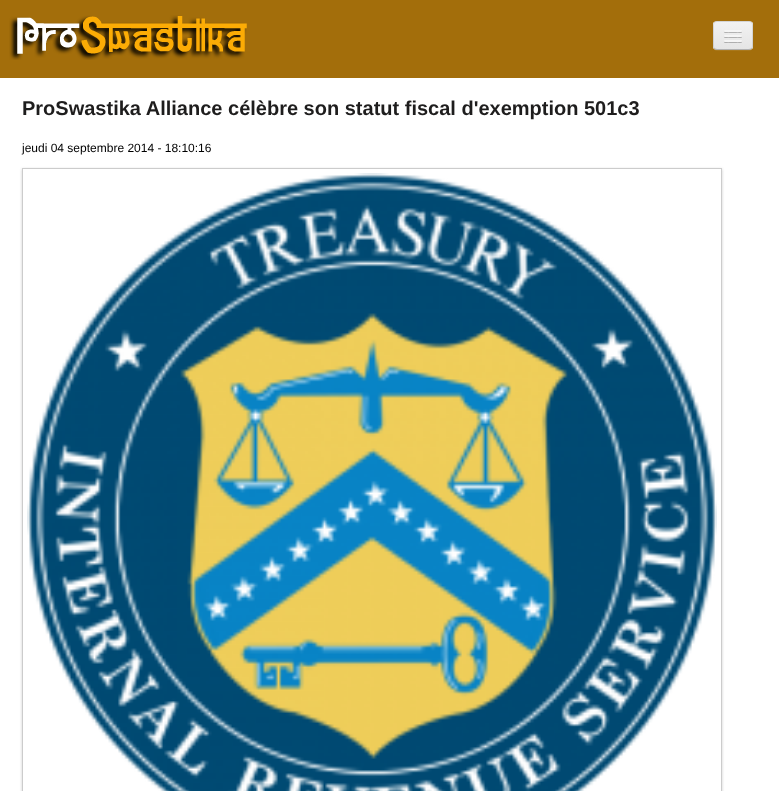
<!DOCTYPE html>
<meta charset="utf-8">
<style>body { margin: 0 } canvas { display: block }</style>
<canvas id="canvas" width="779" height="791"></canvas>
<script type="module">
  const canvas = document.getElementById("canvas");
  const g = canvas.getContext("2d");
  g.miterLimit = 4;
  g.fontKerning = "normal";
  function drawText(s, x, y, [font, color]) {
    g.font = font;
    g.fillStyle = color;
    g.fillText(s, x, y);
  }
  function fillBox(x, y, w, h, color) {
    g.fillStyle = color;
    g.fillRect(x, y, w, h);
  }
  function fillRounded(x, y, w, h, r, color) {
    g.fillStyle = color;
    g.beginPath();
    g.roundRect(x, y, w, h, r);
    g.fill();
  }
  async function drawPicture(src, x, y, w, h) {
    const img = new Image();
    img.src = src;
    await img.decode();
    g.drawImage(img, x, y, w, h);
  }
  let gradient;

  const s1 = ["bold 20px Liberation Sans", "#1E1D1D"];
  const s2 = ["12px Liberation Sans", "#000000"];

  fillBox(0, 0, 779, 791, "#FFFFFF");
  fillBox(0, 0, 779, 78, "#A36E0B");
  await drawPicture("pic1.png", 9, 15, 238, 45);
  g.fillStyle = "#AA791D";
  g.beginPath();
  g.moveTo(713, 46);
  g.bezierCurveTo(713, 52, 718, 51, 722, 51);
  g.lineTo(744, 51);
  g.bezierCurveTo(748, 51, 753, 52, 753, 46);
  g.bezierCurveTo(753, 48, 751, 50, 749, 50);
  g.lineTo(717, 50);
  g.bezierCurveTo(715, 50, 713, 48, 713, 46);
  g.closePath();
  g.fill();
  fillRounded(713, 21, 40, 29, 4, "#EDEDED");
  g.save();
  g.beginPath();
  g.roundRect(713, 21, 40, 29, 4);
  g.clip();
  gradient = g.createLinearGradient(733, 22, 733, 49);
  gradient.addColorStop(0, "#F2F2F2");
  gradient.addColorStop(1, "#E5E5E5");
  g.fillStyle = gradient;
  g.fillRect(713, 22, 40, 27);
  g.restore();
  g.beginPath();
  g.moveTo(751.5, 48.5);
  g.bezierCurveTo(751, 49, 750, 49.5, 749, 49.5);
  g.lineTo(717, 49.5);
  g.bezierCurveTo(716, 49.5, 715, 49, 714.5, 48.5);
  g.strokeStyle = "rgba(0, 0, 0, 0.25)";
  g.stroke();
  g.beginPath();
  g.moveTo(714.5, 48.5);
  g.bezierCurveTo(714, 48, 713.5, 47, 713.5, 46);
  g.lineTo(713.5, 25);
  g.bezierCurveTo(713.5, 24, 714, 23, 714.5, 22.5);
  g.bezierCurveTo(715, 22, 716, 21.5, 717, 21.5);
  g.lineTo(749, 21.5);
  g.bezierCurveTo(750, 21.5, 751, 22, 751.5, 22.5);
  g.bezierCurveTo(752, 23, 752.5, 24, 752.5, 25);
  g.lineTo(752.5, 46);
  g.bezierCurveTo(752.5, 47, 752, 48, 751.5, 48.5);
  g.strokeStyle = "rgba(0, 0, 0, 0.1)";
  g.stroke();
  g.fillStyle = "#B2B2B2";
  g.beginPath();
  g.moveTo(724, 31.5);
  g.bezierCurveTo(723, 33.5, 727.5, 33, 727.5, 33);
  g.lineTo(738.5, 33);
  g.bezierCurveTo(738.5, 33, 743, 33.5, 742, 31.5);
  g.bezierCurveTo(741, 32.5, 734.5, 32, 733, 32);
  g.bezierCurveTo(731.5, 32, 725, 32.5, 724, 31.5);
  g.closePath();
  g.fill();
  fillRounded(724, 30, 18, 2, 1, "#F5F5F5");
  g.fillStyle = "#B0B0B0";
  g.beginPath();
  g.moveTo(724, 36.5);
  g.bezierCurveTo(723, 38.5, 727.5, 38, 727.5, 38);
  g.lineTo(738.5, 38);
  g.bezierCurveTo(738.5, 38, 743, 38.5, 742, 36.5);
  g.bezierCurveTo(741, 37.5, 734.5, 37, 733, 37);
  g.bezierCurveTo(731.5, 37, 725, 37.5, 724, 36.5);
  g.closePath();
  g.fill();
  fillRounded(724, 35, 18, 2, 1, "#F5F5F5");
  g.fillStyle = "#AEAEAE";
  g.beginPath();
  g.moveTo(724, 41.5);
  g.bezierCurveTo(723, 43.5, 727.5, 43, 727.5, 43);
  g.lineTo(738.5, 43);
  g.bezierCurveTo(738.5, 43, 743, 43.5, 742, 41.5);
  g.bezierCurveTo(741, 42.5, 734.5, 42, 733, 42);
  g.bezierCurveTo(731.5, 42, 725, 42.5, 724, 41.5);
  g.closePath();
  g.fill();
  fillRounded(724, 40, 18, 2, 1, "#F5F5F5");
  drawText("ProSwastika Alliance célèbre son statut fiscal d'exemption 501c3", 22, 115, s1);
  drawText("jeudi 04 septembre 2014 - 18:10:16", 22, 152, s2);
  g.save();
  g.beginPath();
  g.moveTo(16, 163);
  g.lineTo(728, 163);
  g.lineTo(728, 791);
  g.lineTo(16, 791);
  g.closePath();
  g.moveTo(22, 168);
  g.lineTo(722, 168);
  g.lineTo(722, 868);
  g.lineTo(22, 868);
  g.closePath();
  g.clip("evenodd");
  g.fillStyle = "#CCCCCC";
  g.filter = "blur(1.5px)";
  g.beginPath();
  g.rect(22, 169, 700, 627);
  g.fill();
  g.filter = "none";
  g.restore();
  g.strokeStyle = "#CCCCCC";
  g.strokeRect(22.5, 168.5, 699, 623);
  await drawPicture("pic2.png", 27, 173, 690, 618);
</script>
